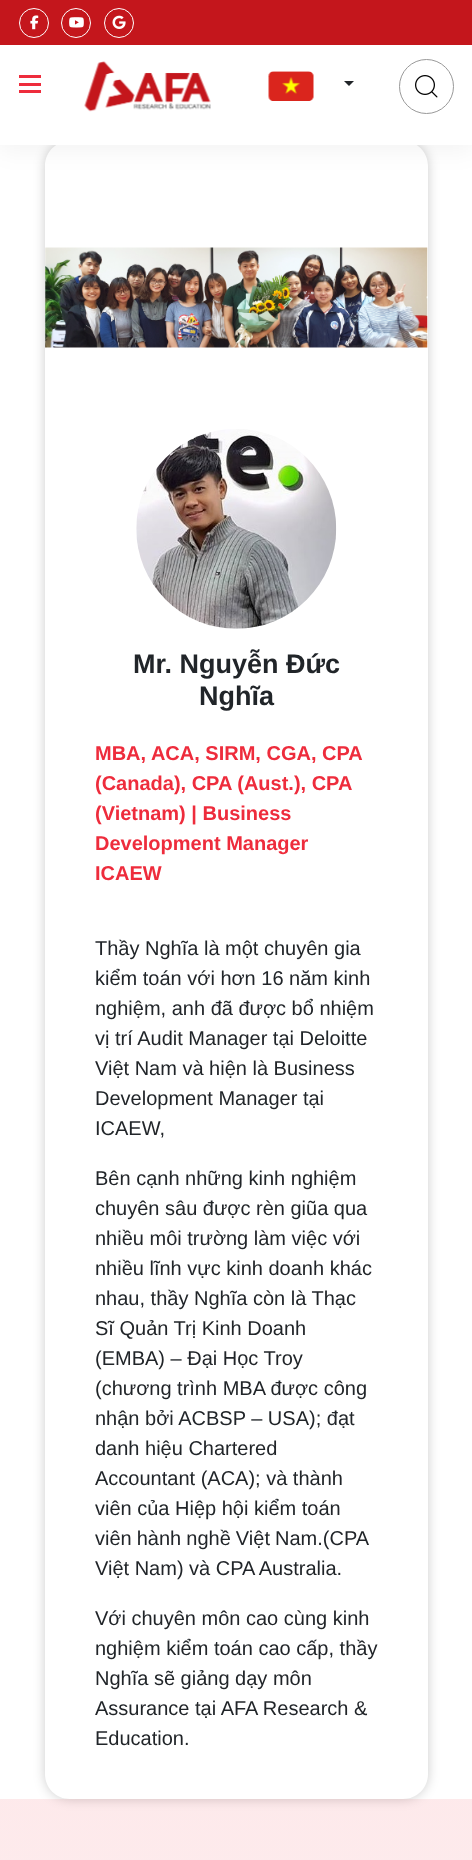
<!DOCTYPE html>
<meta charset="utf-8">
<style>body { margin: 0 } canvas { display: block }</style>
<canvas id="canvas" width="472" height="1860"></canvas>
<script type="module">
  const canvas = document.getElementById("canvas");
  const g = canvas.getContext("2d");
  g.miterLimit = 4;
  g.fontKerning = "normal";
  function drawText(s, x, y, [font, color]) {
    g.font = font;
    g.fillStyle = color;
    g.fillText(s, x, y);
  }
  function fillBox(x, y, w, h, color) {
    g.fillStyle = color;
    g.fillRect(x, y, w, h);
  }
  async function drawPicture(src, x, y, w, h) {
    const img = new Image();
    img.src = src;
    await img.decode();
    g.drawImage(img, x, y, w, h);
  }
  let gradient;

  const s1 = ["bold 27px Liberation Sans", "#212529"];
  const s2 = ["bold 20px Liberation Sans", "#EE2C3C"];
  const s3 = ["20px Liberation Sans", "#212529"];

  fillBox(0, 0, 472, 1860, "#FFFFFF");
  g.fillStyle = "rgba(0, 0, 0, 0.05)";
  g.filter = "blur(12.5px)";
  g.beginPath();
  g.rect(0, 5, 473, 145);
  g.fill();
  g.filter = "none";
  g.save();
  g.beginPath();
  g.moveTo(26, 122);
  g.lineTo(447, 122);
  g.lineTo(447, 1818);
  g.lineTo(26, 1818);
  g.closePath();
  g.moveTo(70, 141);
  g.lineTo(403, 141);
  g.bezierCurveTo(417, 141, 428, 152, 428, 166);
  g.lineTo(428, 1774);
  g.bezierCurveTo(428, 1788, 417, 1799, 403, 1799);
  g.lineTo(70, 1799);
  g.bezierCurveTo(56, 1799, 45, 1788, 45, 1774);
  g.lineTo(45, 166);
  g.bezierCurveTo(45, 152, 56, 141, 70, 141);
  g.closePath();
  g.clip("evenodd");
  g.fillStyle = "rgba(0, 0, 0, 0.2)";
  g.filter = "blur(6px)";
  g.beginPath();
  g.roundRect(45, 141, 383, 1658, 25);
  g.fill();
  g.filter = "none";
  g.restore();
  fillBox(0, 45, 472, 100, "#FFFFFF");
  fillBox(0, 0, 472, 45, "#C4161C");
  g.beginPath();
  g.arc(34, 23, 14.5, 0, Math.PI * 2);
  g.strokeStyle = "#FFFFFF";
  g.stroke();
  await drawPicture("pic1.png", 30, 15, 9, 15);
  g.beginPath();
  g.arc(76, 23, 14.5, 0, Math.PI * 2);
  g.stroke();
  await drawPicture("pic2.png", 69, 17, 15, 11);
  g.beginPath();
  g.arc(119, 23, 14.5, 0, Math.PI * 2);
  g.stroke();
  await drawPicture("pic3.png", 112, 15, 14, 14);
  fillBox(19, 75, 22, 3, "#EE2C3C");
  fillBox(19, 83, 22, 3, "#EE2C3C");
  fillBox(19, 90, 22, 3, "#EE2C3C");
  await drawPicture("pic4.png", 84, 61, 127, 51);
  await drawPicture("pic5.png", 268, 71, 46, 30);
  g.fillStyle = "#212529";
  g.beginPath();
  g.moveTo(344, 81);
  g.lineTo(354, 81);
  g.lineTo(349, 86);
  g.closePath();
  g.fill();
  g.beginPath();
  g.arc(426.5, 86.5, 27, 0, Math.PI * 2);
  g.strokeStyle = "#999999";
  g.stroke();
  await drawPicture("pic6.png", 415, 75, 23, 23);
  await drawPicture("pic7.png", 45, 247, 383, 101);
  await drawPicture("pic8.png", 136, 429, 201, 200);
  drawText("Mr. Nguyễn Đức", 133, 673, s1);
  drawText("Nghĩa", 199, 705, s1);
  drawText("MBA, ACA, SIRM, CGA, CPA", 95, 760, s2);
  drawText("(Canada), CPA (Aust.), CPA", 95, 790, s2);
  drawText("(Vietnam) | Business", 95, 820, s2);
  drawText("Development Manager", 95, 850, s2);
  drawText("ICAEW", 95, 880, s2);
  drawText("Thầy Nghĩa là một chuyên gia", 95, 955, s3);
  drawText("kiểm toán với hơn 16 năm kinh", 95, 985, s3);
  drawText("nghiệm, anh đã được bổ nhiệm", 95, 1015, s3);
  drawText("vị trí Audit Manager tại Deloitte", 95, 1045, s3);
  drawText("Việt Nam và hiện là Business", 95, 1075, s3);
  drawText("Development Manager tại", 95, 1105, s3);
  drawText("ICAEW,", 95, 1135, s3);
  drawText("Bên cạnh những kinh nghiệm", 95, 1185, s3);
  drawText("chuyên sâu được rèn giũa qua", 95, 1215, s3);
  drawText("nhiều môi trường làm việc với", 95, 1245, s3);
  drawText("nhiều lĩnh vực kinh doanh khác", 95, 1275, s3);
  drawText("nhau, thầy Nghĩa còn là Thạc", 95, 1305, s3);
  drawText("Sĩ Quản Trị Kinh Doanh", 95, 1335, s3);
  drawText("(EMBA) – Đại Học Troy", 95, 1365, s3);
  drawText("(chương trình MBA được công", 95, 1395, s3);
  drawText("nhận bởi ACBSP – USA); đạt", 95, 1425, s3);
  drawText("danh hiệu Chartered", 95, 1455, s3);
  drawText("Accountant (ACA); và thành", 95, 1485, s3);
  drawText("viên của Hiệp hội kiểm toán", 95, 1515, s3);
  g.wordSpacing = "-0.5px";
  drawText("viên hành nghề Việt Nam.(CPA", 95, 1545, s3);
  g.wordSpacing = "0px";
  drawText("Việt Nam) và CPA Australia.", 95, 1575, s3);
  drawText("Với chuyên môn cao cùng kinh", 95, 1625, s3);
  drawText("nghiệm kiểm toán cao cấp, thầy", 95, 1655, s3);
  drawText("Nghĩa sẽ giảng dạy môn", 95, 1685, s3);
  drawText("Assurance tại AFA Research &", 95, 1715, s3);
  drawText("Education.", 95, 1745, s3);
  gradient = g.createLinearGradient(236, 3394, 236, 1799);
  gradient.addColorStop(0, "rgba(238, 44, 60, 0)");
  gradient.addColorStop(1, "rgba(238, 44, 60, 0.1)");
  g.fillStyle = gradient;
  g.fillRect(0, 1799, 472, 61);
</script>
